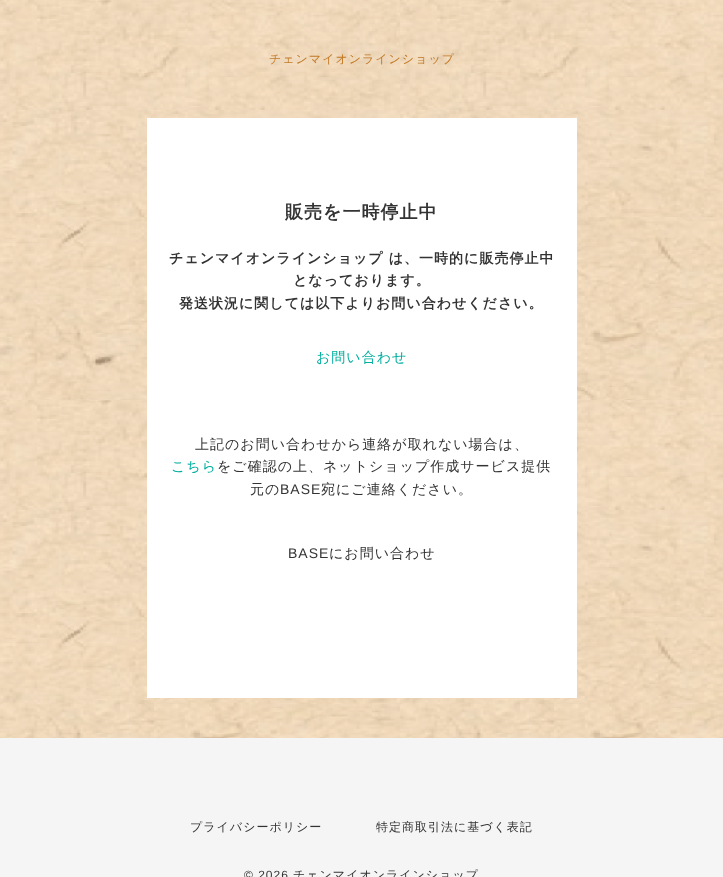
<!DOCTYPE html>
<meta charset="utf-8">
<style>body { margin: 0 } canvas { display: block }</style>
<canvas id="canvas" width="723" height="877"></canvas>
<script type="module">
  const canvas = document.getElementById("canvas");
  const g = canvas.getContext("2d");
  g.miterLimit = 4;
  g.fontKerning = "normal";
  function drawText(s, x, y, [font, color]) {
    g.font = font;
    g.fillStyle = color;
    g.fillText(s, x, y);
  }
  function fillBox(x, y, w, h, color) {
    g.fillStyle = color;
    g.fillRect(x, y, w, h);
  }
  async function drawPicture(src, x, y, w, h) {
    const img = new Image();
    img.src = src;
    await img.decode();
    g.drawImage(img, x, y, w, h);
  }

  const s1 = ["500 12px WenQuanYi Zen Hei", "#C27A25"];
  const s2 = ["bold 18px WenQuanYi Zen Hei", "#333333"];
  const s3 = ["bold 14px WenQuanYi Zen Hei", "#333333"];
  const s4 = ["500 14px WenQuanYi Zen Hei", "#00AE9F"];
  const s5 = ["500 14px WenQuanYi Zen Hei", "#333333"];
  const s6 = ["14px Liberation Sans", "#333333"];
  const s7 = ["500 12px WenQuanYi Zen Hei", "#333333"];
  const s8 = ["12px Liberation Sans", "#333333"];

  fillBox(0, 0, 723, 877, "#FFFFFF");
  await drawPicture("pic1.png", 0, 0, 723, 738);
  g.letterSpacing = "1px";
  drawText("チェンマイオンラインショップ", 269, 63, s1);
  fillBox(147, 118, 430, 580, "#FFFFFF");
  drawText("販売を一時停止中", 285, 218, s2);
  drawText("チェンマイオンラインショップ は、一時的に販売停止中", 169, 263, s3);
  drawText("となっております。", 293, 285, s3);
  drawText("発送状況に関しては以下よりお問い合わせください。", 179, 308, s3);
  drawText("お問い合わせ", 316, 362, s4);
  drawText("上記のお問い合わせから連絡が取れない場合は、", 195, 449, s5);
  drawText("こちら", 171, 471, s4);
  drawText("をご確認の上、ネットショップ作成サービス提供", 217, 471, s5);
  drawText("元の", 250, 494, s5);
  drawText("BASE", 280, 494, s6);
  drawText("宛にご連絡ください。", 321, 494, s5);
  drawText("BASE", 288, 558, s6);
  drawText("にお問い合わせ", 329, 558, s5);
  fillBox(0, 738, 723, 139, "#F5F5F5");
  drawText("プライバシーポリシー", 190, 831, s7);
  drawText("特定商取引法に基づく表記", 376, 831, s7);
  drawText("© 2026", 244, 879, s8);
  drawText("チェンマイオンラインショップ", 293, 879, s7);
</script>
